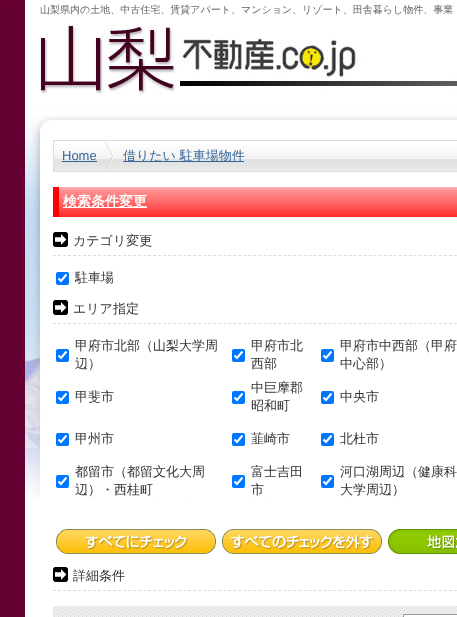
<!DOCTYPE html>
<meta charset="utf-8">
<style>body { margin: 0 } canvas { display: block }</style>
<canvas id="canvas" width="457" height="617"></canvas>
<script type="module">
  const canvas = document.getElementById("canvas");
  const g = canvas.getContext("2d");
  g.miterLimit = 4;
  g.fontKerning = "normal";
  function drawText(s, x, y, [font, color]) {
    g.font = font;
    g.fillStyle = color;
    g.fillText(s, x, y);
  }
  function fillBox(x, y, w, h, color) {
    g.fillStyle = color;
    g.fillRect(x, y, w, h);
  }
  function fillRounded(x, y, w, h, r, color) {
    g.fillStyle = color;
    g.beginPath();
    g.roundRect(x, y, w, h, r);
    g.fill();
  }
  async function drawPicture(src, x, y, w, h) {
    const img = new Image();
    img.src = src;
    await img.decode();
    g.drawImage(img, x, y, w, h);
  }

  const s1 = ["500 10px WenQuanYi Zen Hei", "#666666"];
  const s2 = ["13px Liberation Sans", "#336699"];
  const s3 = ["500 13px WenQuanYi Zen Hei", "#336699"];
  const s4 = ["bold 14px WenQuanYi Zen Hei", "#FFFFFF"];
  const s5 = ["500 13px WenQuanYi Zen Hei", "#333333"];

  fillBox(0, 0, 457, 617, "#FFFFFF");
  await drawPicture("pic1.png", 0, 0, 457, 550);
  fillBox(0, 8, 25, 609, "#650133");
  await drawPicture("pic2.png", 40, 25, 417, 70);
  drawText("山梨県内の土地、中古住宅、賃貸アパート、マンション、リゾート、田舎暮らし物件、事業", 40, 13, s1);
  await drawPicture("pic3.png", 25, 116, 432, 383);
  await drawPicture("pic4.png", 54, 141, 403, 30);
  g.strokeStyle = "#DDDDDD";
  g.strokeRect(53.5, 140.5, 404, 31);
  drawText("Home", 62, 160, s2);
  fillBox(62, 161, 35, 1, "#336699");
  await drawPicture("pic5.png", 105, 141, 9, 30);
  fillBox(123, 161, 121, 1, "#336699");
  drawText("借りたい 駐車場物件", 123, 160, s3);
  await drawPicture("pic6.png", 53, 187, 404, 30);
  fillBox(63, 207, 84, 1, "#FFFFFF");
  drawText("検索条件変更", 63, 206, s4);
  await drawPicture("pic7.png", 53, 232, 15, 15);
  g.beginPath();
  g.moveTo(53, 255.5);
  g.lineTo(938, 255.5);
  g.setLineDash([3, 2.01]);
  g.stroke();
  drawText("カテゴリ変更", 73, 245, s5);
  fillRounded(56, 272, 13, 13, 2, "#0075FF");
  g.beginPath();
  g.moveTo(58.5, 278.5);
  g.lineTo(61, 281);
  g.lineTo(66.5, 274.5);
  g.strokeStyle = "#FFFFFF";
  g.lineWidth = 2.1;
  g.setLineDash([]);
  g.stroke();
  drawText("駐車場", 75, 282, s5);
  await drawPicture("pic7.png", 53, 300, 15, 15);
  g.beginPath();
  g.moveTo(53, 323.5);
  g.lineTo(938, 323.5);
  g.strokeStyle = "#DDDDDD";
  g.lineWidth = 1;
  g.setLineDash([3, 2.01]);
  g.stroke();
  drawText("エリア指定", 73, 313, s5);
  fillRounded(56, 349, 13, 13, 2, "#0075FF");
  g.beginPath();
  g.moveTo(58.5, 355.5);
  g.lineTo(61, 358);
  g.lineTo(66.5, 351.5);
  g.strokeStyle = "#FFFFFF";
  g.lineWidth = 2.1;
  g.setLineDash([]);
  g.stroke();
  drawText("甲府市北部（山梨大学周", 75, 350, s5);
  drawText("辺）", 75, 368, s5);
  fillRounded(232, 349, 13, 13, 2, "#0075FF");
  g.beginPath();
  g.moveTo(234.5, 355.5);
  g.lineTo(237, 358);
  g.lineTo(242.5, 351.5);
  g.stroke();
  drawText("甲府市北", 251, 350, s5);
  drawText("西部", 251, 368, s5);
  fillRounded(321, 349, 13, 13, 2, "#0075FF");
  g.beginPath();
  g.moveTo(323.5, 355.5);
  g.lineTo(326, 358);
  g.lineTo(331.5, 351.5);
  g.stroke();
  drawText("甲府市中西部（甲府", 340, 350, s5);
  drawText("中心部）", 340, 368, s5);
  fillRounded(56, 391, 13, 13, 2, "#0075FF");
  g.beginPath();
  g.moveTo(58.5, 397.5);
  g.lineTo(61, 400);
  g.lineTo(66.5, 393.5);
  g.stroke();
  drawText("甲斐市", 75, 401, s5);
  fillRounded(232, 391, 13, 13, 2, "#0075FF");
  g.beginPath();
  g.moveTo(234.5, 397.5);
  g.lineTo(237, 400);
  g.lineTo(242.5, 393.5);
  g.stroke();
  drawText("中巨摩郡", 251, 392, s5);
  drawText("昭和町", 251, 410, s5);
  fillRounded(321, 391, 13, 13, 2, "#0075FF");
  g.beginPath();
  g.moveTo(323.5, 397.5);
  g.lineTo(326, 400);
  g.lineTo(331.5, 393.5);
  g.stroke();
  drawText("中央市", 340, 401, s5);
  fillRounded(56, 433, 13, 13, 2, "#0075FF");
  g.beginPath();
  g.moveTo(58.5, 439.5);
  g.lineTo(61, 442);
  g.lineTo(66.5, 435.5);
  g.stroke();
  drawText("甲州市", 75, 443, s5);
  fillRounded(232, 433, 13, 13, 2, "#0075FF");
  g.beginPath();
  g.moveTo(234.5, 439.5);
  g.lineTo(237, 442);
  g.lineTo(242.5, 435.5);
  g.stroke();
  drawText("韮崎市", 251, 443, s5);
  fillRounded(321, 433, 13, 13, 2, "#0075FF");
  g.beginPath();
  g.moveTo(323.5, 439.5);
  g.lineTo(326, 442);
  g.lineTo(331.5, 435.5);
  g.stroke();
  drawText("北杜市", 340, 443, s5);
  fillRounded(56, 475, 13, 13, 2, "#0075FF");
  g.beginPath();
  g.moveTo(58.5, 481.5);
  g.lineTo(61, 484);
  g.lineTo(66.5, 477.5);
  g.stroke();
  drawText("都留市（都留文化大周", 75, 476, s5);
  drawText("辺）・西桂町", 75, 494, s5);
  fillRounded(232, 475, 13, 13, 2, "#0075FF");
  g.beginPath();
  g.moveTo(234.5, 481.5);
  g.lineTo(237, 484);
  g.lineTo(242.5, 477.5);
  g.stroke();
  drawText("富士吉田", 251, 476, s5);
  drawText("市", 251, 494, s5);
  fillRounded(321, 475, 13, 13, 2, "#0075FF");
  g.beginPath();
  g.moveTo(323.5, 481.5);
  g.lineTo(326, 484);
  g.lineTo(331.5, 477.5);
  g.stroke();
  drawText("河口湖周辺（健康科", 340, 476, s5);
  drawText("大学周辺）", 340, 494, s5);
  await drawPicture("pic8.png", 56, 529, 160, 25);
  await drawPicture("pic9.png", 222, 529, 160, 25);
  await drawPicture("pic10.png", 388, 529, 69, 25);
  await drawPicture("pic7.png", 53, 567, 15, 15);
  g.beginPath();
  g.moveTo(53, 590.5);
  g.lineTo(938, 590.5);
  g.strokeStyle = "#DDDDDD";
  g.lineWidth = 1;
  g.setLineDash([3, 2.01]);
  g.stroke();
  drawText("詳細条件", 73, 580, s5);
  await drawPicture("pic11.png", 53, 606, 404, 11);
  fillBox(403, 615, 54, 2, "#FFFFFF");
  fillBox(403, 614, 54, 1, "#999999");
  fillBox(403, 614, 1, 3, "#999999");
</script>
